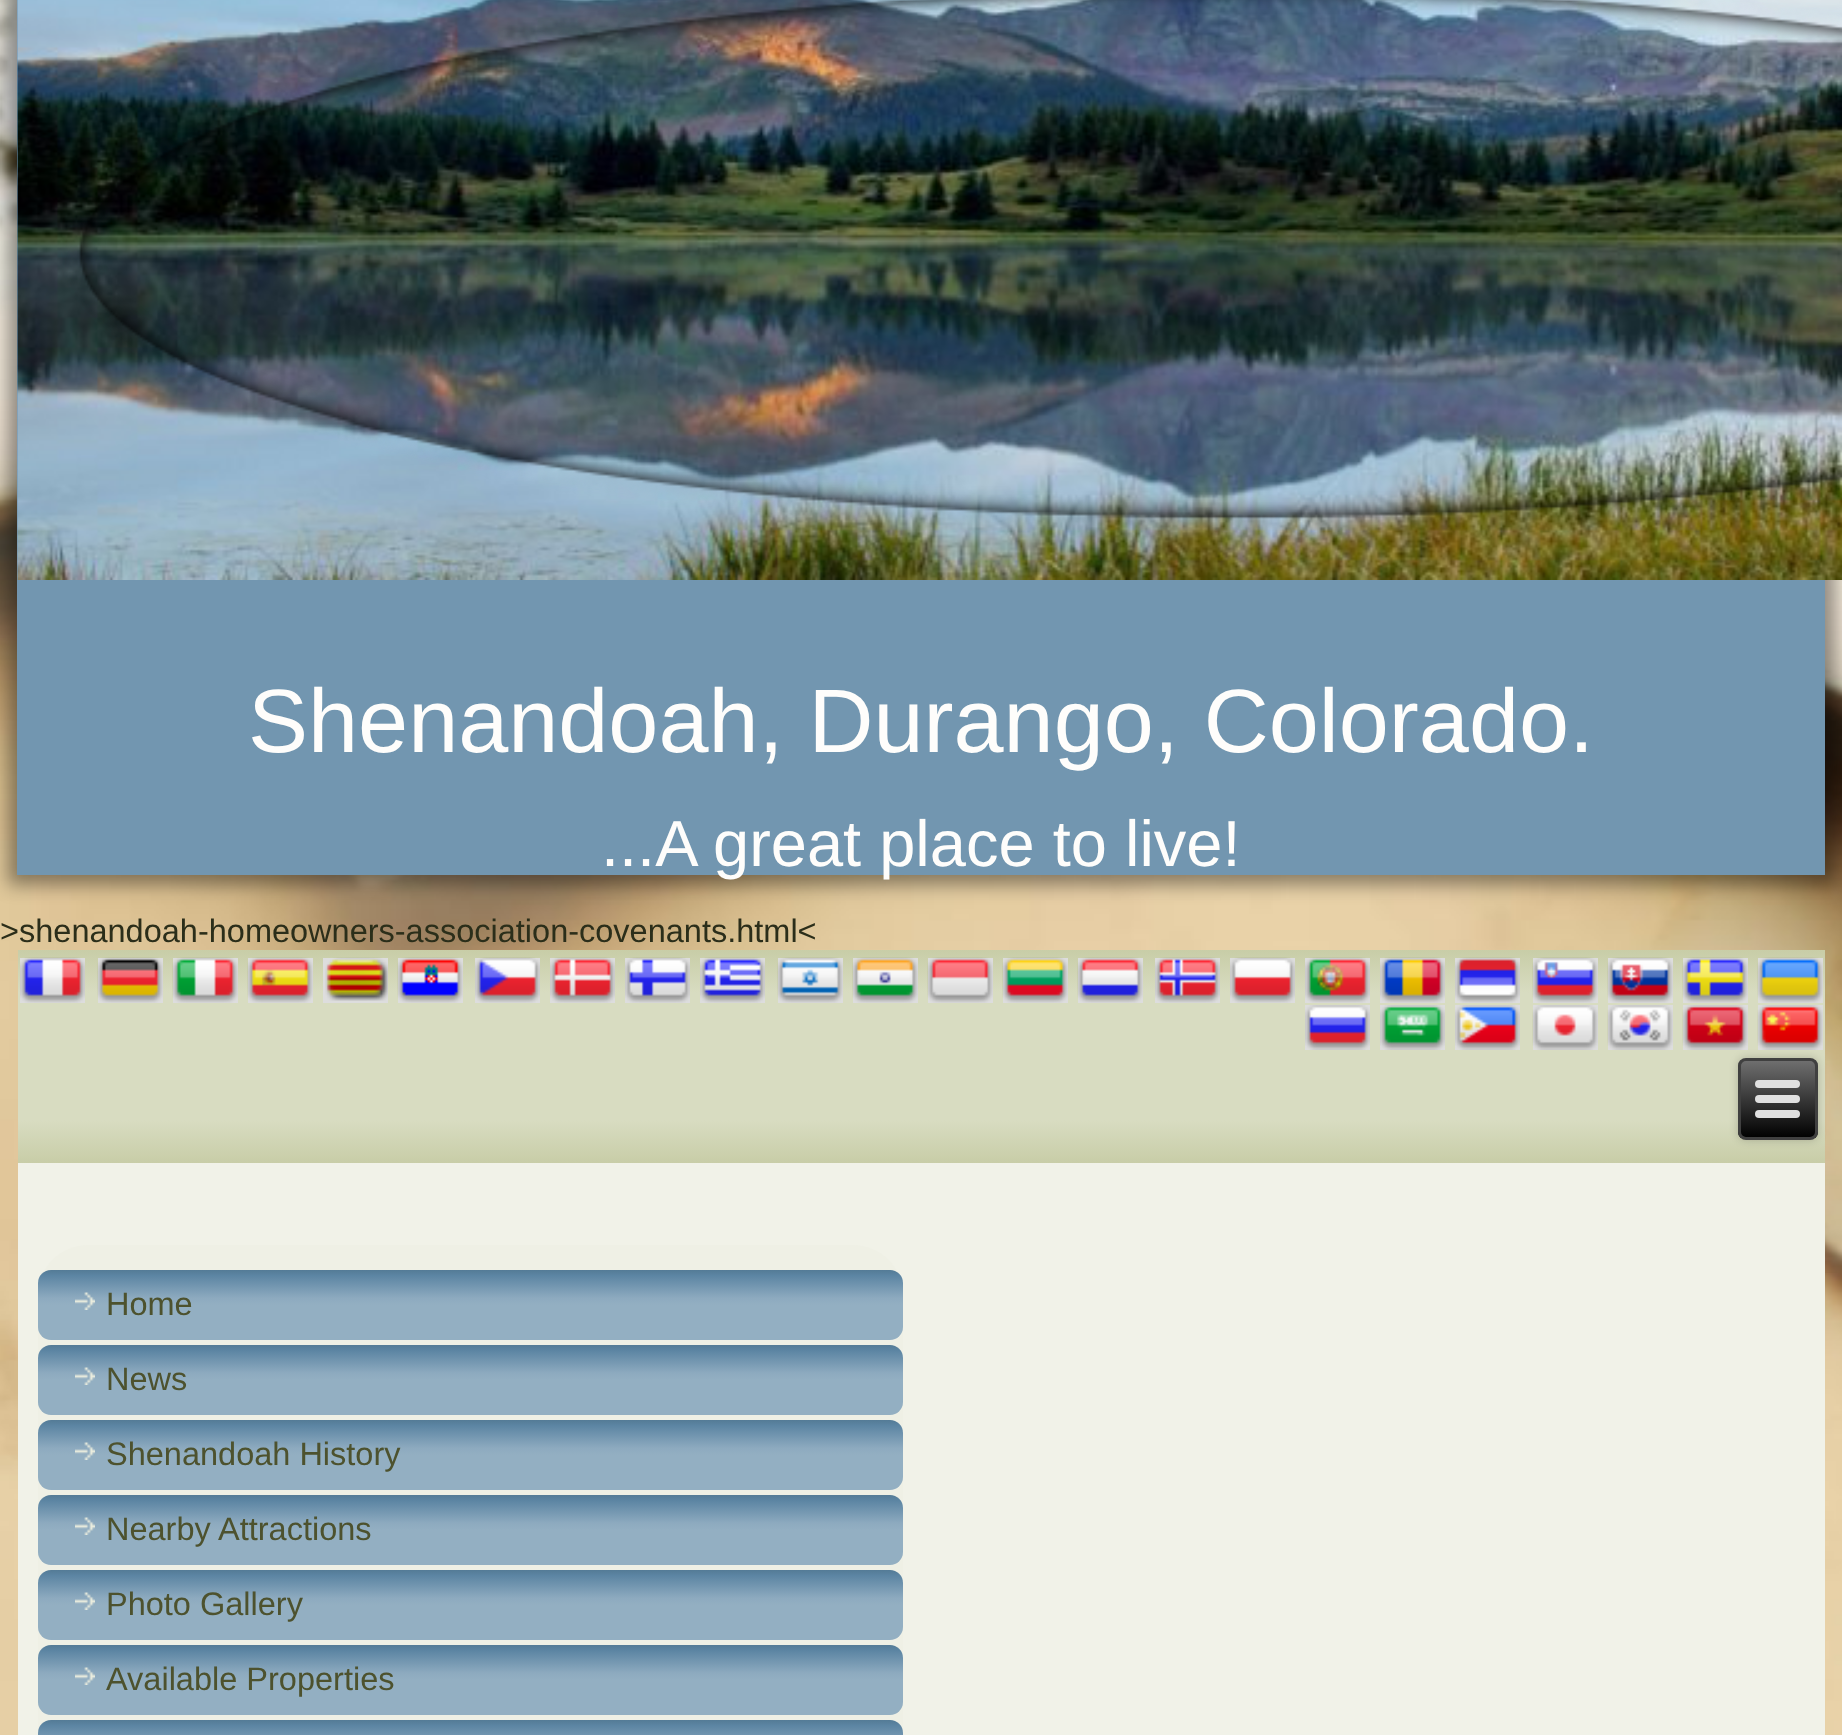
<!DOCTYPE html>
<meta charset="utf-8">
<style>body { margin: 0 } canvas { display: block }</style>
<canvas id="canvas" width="1842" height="1735"></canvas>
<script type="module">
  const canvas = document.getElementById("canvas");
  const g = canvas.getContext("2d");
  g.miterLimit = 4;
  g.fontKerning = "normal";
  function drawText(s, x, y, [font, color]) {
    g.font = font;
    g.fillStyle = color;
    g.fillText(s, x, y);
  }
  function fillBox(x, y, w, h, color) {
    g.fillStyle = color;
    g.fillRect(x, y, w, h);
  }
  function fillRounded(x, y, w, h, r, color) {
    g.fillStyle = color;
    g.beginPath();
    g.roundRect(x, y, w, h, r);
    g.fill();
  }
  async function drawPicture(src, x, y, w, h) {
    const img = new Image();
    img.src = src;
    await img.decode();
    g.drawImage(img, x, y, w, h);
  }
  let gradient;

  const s1 = ["90px Liberation Sans", "#FEFDFB"];
  const s2 = ["65px Liberation Sans", "#FEFDFB"];
  const s3 = ["32.5px Liberation Sans", "#2B2E1A"];
  const s4 = ["32.5px Liberation Sans", "#4D522E"];

  fillBox(0, 0, 1842, 1735, "#FFFFFF");
  await drawPicture("pic1.png", 0, 0, 1842, 1735);
  g.fillStyle = "rgba(0, 0, 0, 0.4)";
  g.filter = "blur(9px)";
  g.beginPath();
  g.rect(8, -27, 1827, 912);
  g.fill();
  g.filter = "none";
  fillBox(17, 0, 1808, 875, "#7296B0");
  await drawPicture("pic2.png", 17, 0, 1825, 580);
  await drawPicture("pic3.png", 17, 0, 1825, 580);
  drawText("Shenandoah, Durango, Colorado.", 248, 752, s1);
  drawText("...A great place to live!", 601, 866, s2);
  drawText(">shenandoah-homeowners-association-covenants.html<", 0, 942, s3);
  gradient = g.createLinearGradient(921, 950, 921, 1163);
  gradient.addColorStop(0, "#C8CDA7");
  gradient.addColorStop(0.2, "#D8DCC1");
  gradient.addColorStop(0.8, "#D8DCC1");
  gradient.addColorStop(1, "#C8CDA7");
  g.fillStyle = gradient;
  g.fillRect(18, 950, 1807, 213);
  fillBox(20, 958, 65, 45, "#DDDDDD");
  await drawPicture("pic4.png", 20, 957, 65, 46);
  fillBox(98, 958, 65, 45, "#DDDDDD");
  await drawPicture("pic5.png", 97, 957, 66, 46);
  fillBox(173, 958, 65, 45, "#DDDDDD");
  await drawPicture("pic6.png", 172, 957, 66, 46);
  fillBox(248, 958, 65, 45, "#DDDDDD");
  await drawPicture("pic7.png", 247, 957, 66, 46);
  fillBox(323, 958, 65, 45, "#DDDDDD");
  await drawPicture("pic8.png", 325, 957, 63, 44);
  fillBox(398, 958, 65, 45, "#DDDDDD");
  await drawPicture("pic9.png", 397, 957, 66, 46);
  fillBox(475, 958, 65, 45, "#DDDDDD");
  await drawPicture("pic10.png", 475, 957, 65, 46);
  fillBox(550, 958, 65, 45, "#DDDDDD");
  await drawPicture("pic11.png", 550, 957, 65, 46);
  fillBox(625, 958, 65, 45, "#DDDDDD");
  await drawPicture("pic12.png", 625, 957, 65, 46);
  fillBox(700, 958, 65, 45, "#DDDDDD");
  await drawPicture("pic13.png", 700, 957, 65, 46);
  fillBox(778, 958, 65, 45, "#DDDDDD");
  await drawPicture("pic14.png", 777, 957, 66, 46);
  fillBox(853, 958, 65, 45, "#DDDDDD");
  await drawPicture("pic15.png", 852, 957, 66, 46);
  fillBox(928, 958, 65, 45, "#DDDDDD");
  await drawPicture("pic16.png", 927, 957, 66, 46);
  fillBox(1003, 958, 65, 45, "#DDDDDD");
  await drawPicture("pic17.png", 1002, 957, 66, 46);
  fillBox(1078, 958, 65, 45, "#DDDDDD");
  await drawPicture("pic18.png", 1077, 957, 66, 46);
  fillBox(1155, 958, 65, 45, "#DDDDDD");
  await drawPicture("pic19.png", 1155, 957, 65, 46);
  fillBox(1230, 958, 65, 45, "#DDDDDD");
  await drawPicture("pic20.png", 1230, 957, 65, 46);
  fillBox(1305, 958, 65, 45, "#DDDDDD");
  await drawPicture("pic21.png", 1305, 957, 65, 46);
  fillBox(1380, 958, 65, 45, "#DDDDDD");
  await drawPicture("pic22.png", 1380, 957, 65, 46);
  fillBox(1455, 958, 65, 45, "#DDDDDD");
  await drawPicture("pic23.png", 1455, 957, 65, 46);
  fillBox(1533, 958, 65, 45, "#DDDDDD");
  await drawPicture("pic24.png", 1532, 957, 66, 46);
  fillBox(1608, 958, 65, 45, "#DDDDDD");
  await drawPicture("pic25.png", 1607, 957, 66, 46);
  fillBox(1683, 958, 65, 45, "#DDDDDD");
  await drawPicture("pic26.png", 1682, 957, 66, 46);
  fillBox(1758, 958, 65, 45, "#DDDDDD");
  await drawPicture("pic27.png", 1757, 957, 66, 46);
  fillBox(1305, 1005, 65, 45, "#DDDDDD");
  await drawPicture("pic28.png", 1305, 1005, 65, 45);
  fillBox(1380, 1005, 65, 45, "#DDDDDD");
  await drawPicture("pic29.png", 1380, 1005, 65, 45);
  fillBox(1455, 1005, 65, 45, "#DDDDDD");
  await drawPicture("pic30.png", 1455, 1005, 65, 45);
  fillBox(1533, 1005, 65, 45, "#DDDDDD");
  await drawPicture("pic31.png", 1532, 1005, 66, 45);
  fillBox(1608, 1005, 65, 45, "#DDDDDD");
  await drawPicture("pic32.png", 1607, 1005, 66, 45);
  fillBox(1683, 1005, 65, 45, "#DDDDDD");
  await drawPicture("pic33.png", 1682, 1005, 66, 45);
  fillBox(1758, 1005, 65, 45, "#DDDDDD");
  await drawPicture("pic34.png", 1757, 1005, 66, 45);
  g.fillStyle = "rgba(0, 0, 0, 0.2)";
  g.filter = "blur(4px)";
  g.beginPath();
  g.roundRect(1738, 1058, 80, 82, 8);
  g.fill();
  g.filter = "none";
  g.save();
  g.beginPath();
  g.roundRect(1738, 1058, 80, 82, 8);
  g.clip();
  gradient = g.createLinearGradient(1778, 1060, 1778, 1138);
  gradient.addColorStop(0, "#707070");
  gradient.addColorStop(1, "#000000");
  g.fillStyle = gradient;
  g.fillRect(1738, 1060, 80, 78);
  g.restore();
  g.beginPath();
  g.roundRect(1739.5, 1059.5, 77, 79, 6.5);
  g.strokeStyle = "#404040";
  g.lineWidth = 3;
  g.stroke();
  fillRounded(1755, 1080, 45, 8, 4, "#E0E0E0");
  fillRounded(1755, 1095, 45, 8, 4, "#E0E0E0");
  fillRounded(1755, 1110, 45, 8, 4, "#E0E0E0");
  fillBox(18, 1163, 1807, 572, "#F1F2E8");
  g.fillStyle = "#EFF0E5";
  g.beginPath();
  g.moveTo(88, 1245);
  g.lineTo(853, 1245);
  g.bezierCurveTo(880.5, 1245, 903, 1267.5, 903, 1295);
  g.lineTo(903, 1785);
  g.lineTo(38, 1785);
  g.lineTo(38, 1295);
  g.bezierCurveTo(38, 1267.5, 60.5, 1245, 88, 1245);
  g.closePath();
  g.fill();
  gradient = g.createLinearGradient(470, 1270, 470, 1340);
  gradient.addColorStop(0, "#547B96");
  gradient.addColorStop(0.08, "#5C85A3");
  gradient.addColorStop(0.4, "#8DAABF");
  gradient.addColorStop(0.5, "#93AFC2");
  gradient.addColorStop(1, "#93AFC2");
  g.fillStyle = gradient;
  g.beginPath();
  g.roundRect(38, 1270, 865, 70, 13);
  g.fill();
  await drawPicture("pic35.png", 75, 1292, 20, 18);
  drawText("Home", 106, 1315, s4);
  gradient = g.createLinearGradient(470, 1345, 470, 1415);
  gradient.addColorStop(0, "#547B96");
  gradient.addColorStop(0.08, "#5C85A3");
  gradient.addColorStop(0.4, "#8DAABF");
  gradient.addColorStop(0.5, "#93AFC2");
  gradient.addColorStop(1, "#93AFC2");
  g.fillStyle = gradient;
  g.beginPath();
  g.roundRect(38, 1345, 865, 70, 13);
  g.fill();
  await drawPicture("pic35.png", 75, 1367, 20, 18);
  drawText("News", 106, 1390, s4);
  gradient = g.createLinearGradient(470, 1420, 470, 1490);
  gradient.addColorStop(0, "#547B96");
  gradient.addColorStop(0.08, "#5C85A3");
  gradient.addColorStop(0.4, "#8DAABF");
  gradient.addColorStop(0.5, "#93AFC2");
  gradient.addColorStop(1, "#93AFC2");
  g.fillStyle = gradient;
  g.beginPath();
  g.roundRect(38, 1420, 865, 70, 13);
  g.fill();
  await drawPicture("pic35.png", 75, 1442, 20, 18);
  drawText("Shenandoah History", 106, 1465, s4);
  gradient = g.createLinearGradient(470, 1495, 470, 1565);
  gradient.addColorStop(0, "#547B96");
  gradient.addColorStop(0.08, "#5C85A3");
  gradient.addColorStop(0.4, "#8DAABF");
  gradient.addColorStop(0.5, "#93AFC2");
  gradient.addColorStop(1, "#93AFC2");
  g.fillStyle = gradient;
  g.beginPath();
  g.roundRect(38, 1495, 865, 70, 13);
  g.fill();
  await drawPicture("pic35.png", 75, 1517, 20, 18);
  drawText("Nearby Attractions", 106, 1540, s4);
  gradient = g.createLinearGradient(470, 1570, 470, 1640);
  gradient.addColorStop(0, "#547B96");
  gradient.addColorStop(0.08, "#5C85A3");
  gradient.addColorStop(0.4, "#8DAABF");
  gradient.addColorStop(0.5, "#93AFC2");
  gradient.addColorStop(1, "#93AFC2");
  g.fillStyle = gradient;
  g.beginPath();
  g.roundRect(38, 1570, 865, 70, 13);
  g.fill();
  await drawPicture("pic35.png", 75, 1592, 20, 18);
  drawText("Photo Gallery", 106, 1615, s4);
  gradient = g.createLinearGradient(470, 1645, 470, 1715);
  gradient.addColorStop(0, "#547B96");
  gradient.addColorStop(0.08, "#5C85A3");
  gradient.addColorStop(0.4, "#8DAABF");
  gradient.addColorStop(0.5, "#93AFC2");
  gradient.addColorStop(1, "#93AFC2");
  g.fillStyle = gradient;
  g.beginPath();
  g.roundRect(38, 1645, 865, 70, 13);
  g.fill();
  await drawPicture("pic35.png", 75, 1667, 20, 18);
  drawText("Available Properties", 106, 1690, s4);
  gradient = g.createLinearGradient(470, 1720, 470, 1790);
  gradient.addColorStop(0, "#547B96");
  gradient.addColorStop(0.08, "#5C85A3");
  gradient.addColorStop(0.4, "#8DAABF");
  gradient.addColorStop(0.5, "#93AFC2");
  gradient.addColorStop(1, "#93AFC2");
  g.fillStyle = gradient;
  g.beginPath();
  g.roundRect(38, 1720, 865, 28, 13);
  g.fill();
</script>
